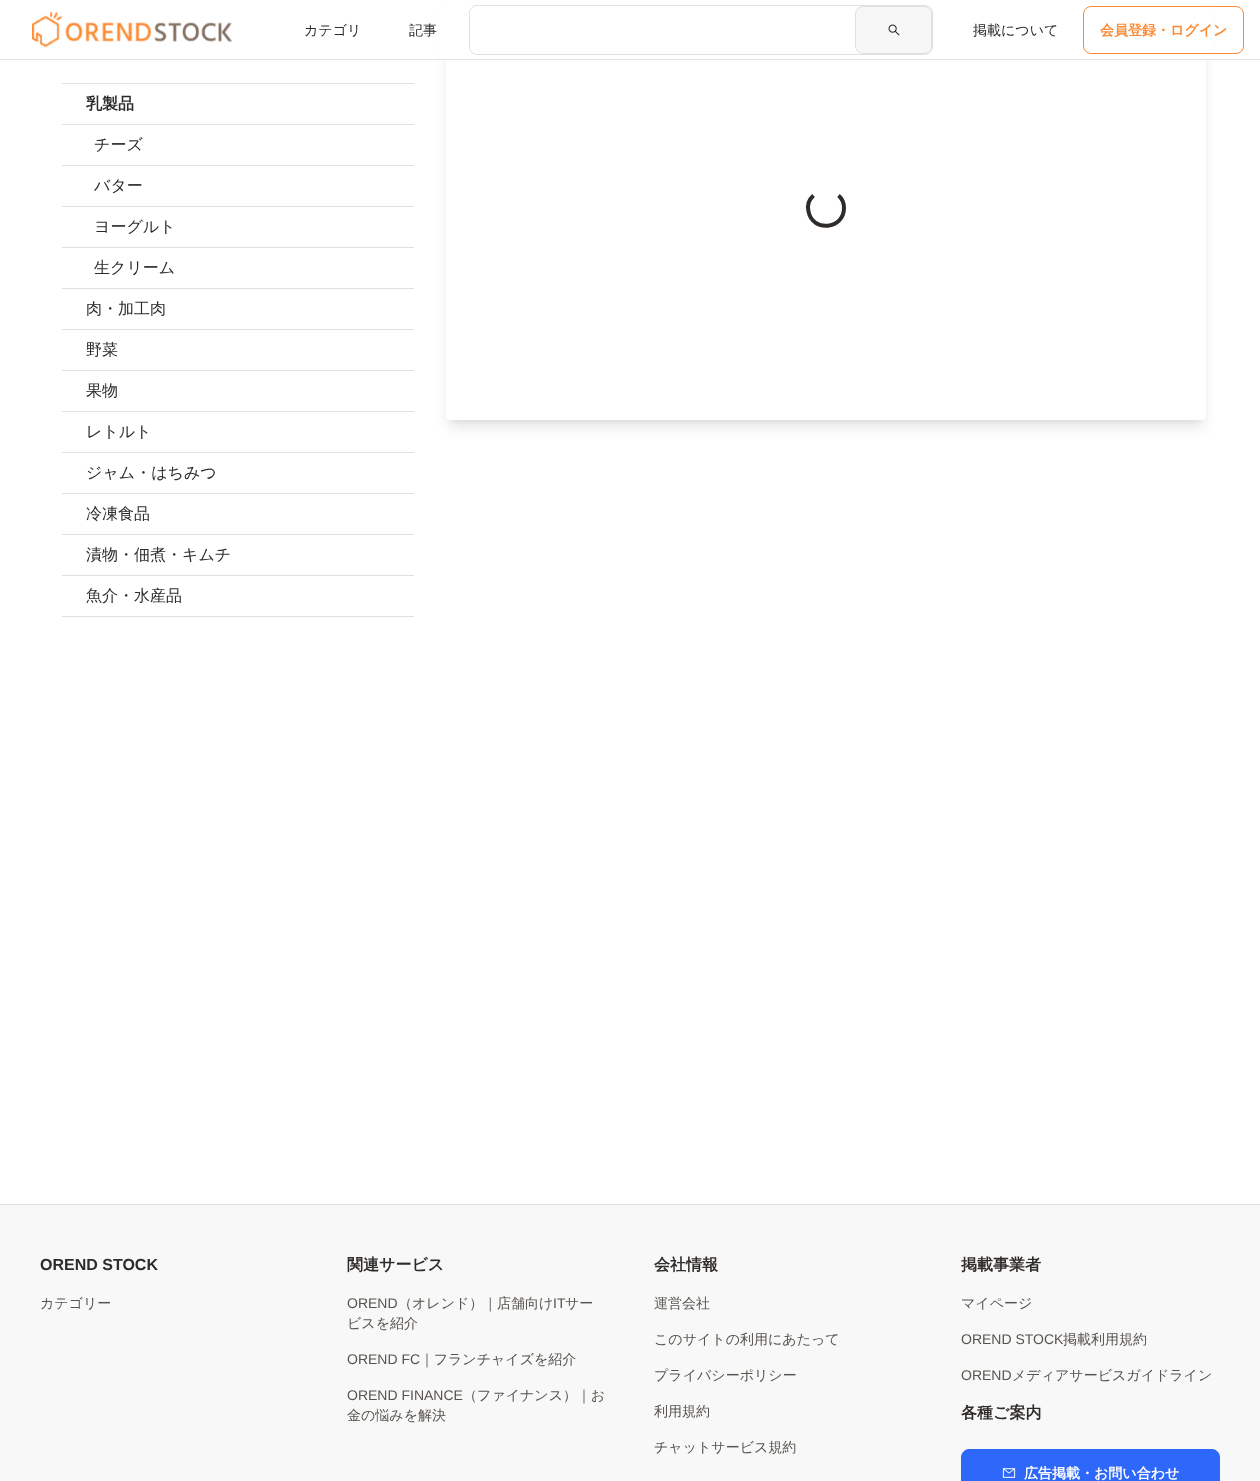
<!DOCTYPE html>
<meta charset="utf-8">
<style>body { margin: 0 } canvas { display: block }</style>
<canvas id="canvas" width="1260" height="1481"></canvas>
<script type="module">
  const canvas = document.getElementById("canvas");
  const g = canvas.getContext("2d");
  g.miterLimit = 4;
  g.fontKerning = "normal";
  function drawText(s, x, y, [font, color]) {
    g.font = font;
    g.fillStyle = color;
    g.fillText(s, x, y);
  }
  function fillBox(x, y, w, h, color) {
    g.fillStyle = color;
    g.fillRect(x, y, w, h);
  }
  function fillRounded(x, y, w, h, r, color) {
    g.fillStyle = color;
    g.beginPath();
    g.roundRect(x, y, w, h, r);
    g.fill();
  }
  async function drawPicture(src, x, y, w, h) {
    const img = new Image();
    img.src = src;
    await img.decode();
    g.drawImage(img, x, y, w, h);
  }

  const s1 = ["500 14px WenQuanYi Zen Hei", "#2E2B29"];
  const s2 = ["bold 14px WenQuanYi Zen Hei", "#FC8931"];
  const s3 = ["bold 16px WenQuanYi Zen Hei", "#2E2B29"];
  const s4 = ["500 16px WenQuanYi Zen Hei", "#2E2B29"];
  const s5 = ["bold 16px Liberation Sans", "#2E2B29"];
  const s6 = ["500 14px WenQuanYi Zen Hei", "#57534D"];
  const s7 = ["14px Liberation Sans", "#57534D"];
  const s8 = ["bold 14px WenQuanYi Zen Hei", "#FFFFFF"];

  fillBox(0, 0, 1260, 1481, "#FFFFFF");
  g.fillStyle = "rgba(0, 0, 0, 0.1)";
  g.filter = "blur(3px)";
  g.beginPath();
  g.rect(450, 4, 752, 416);
  g.fill();
  g.filter = "none";
  g.filter = "blur(7.5px)";
  g.beginPath();
  g.roundRect(449, 9, 754, 418, 1);
  g.fill();
  g.filter = "none";
  fillRounded(446, -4, 760, 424, 4, "#FFFFFF");
  fillBox(439, 3, 774, 56, "#FFFFFF");
  fillBox(0, 59, 1260, 1, "#E0E0E0");
  await drawPicture("pic1.png", 32, 11, 200, 37);
  drawText("カテゴリ", 304, 35, s1);
  drawText("記事", 409, 35, s1);
  g.beginPath();
  g.roundRect(469.5, 5.5, 463, 49, 7.5);
  g.strokeStyle = "#E0E0E0";
  g.stroke();
  g.fillStyle = "#FFFFFF";
  g.beginPath();
  g.roundRect(470, 6, 381, 48, [8, 0, 0, 8]);
  g.fill();
  g.fillStyle = "#F7F7F7";
  g.beginPath();
  g.roundRect(855.5, 6.5, 76, 47, 7.5);
  g.fill();
  g.stroke();
  await drawPicture("pic2.png", 888, 24, 12, 12);
  drawText("掲載について", 973, 35, s1);
  g.beginPath();
  g.roundRect(1083.5, 6.5, 160, 47, 7.5);
  g.strokeStyle = "#FC8931";
  g.stroke();
  drawText("会員登録・ログイン", 1100, 35, s2);
  fillBox(62, 83, 352, 1, "#E0E0E0");
  drawText("乳製品", 86, 109, s3);
  fillBox(62, 124, 352, 1, "#E0E0E0");
  drawText("チーズ", 94, 150, s4);
  fillBox(62, 165, 352, 1, "#E0E0E0");
  drawText("バター", 94, 191, s4);
  fillBox(62, 206, 352, 1, "#E0E0E0");
  drawText("ヨーグルト", 94, 232, s4);
  fillBox(62, 247, 352, 1, "#E0E0E0");
  drawText("生クリーム", 94, 273, s4);
  fillBox(62, 288, 352, 1, "#E0E0E0");
  drawText("肉・加工肉", 86, 314, s4);
  fillBox(62, 329, 352, 1, "#E0E0E0");
  drawText("野菜", 86, 355, s4);
  fillBox(62, 370, 352, 1, "#E0E0E0");
  drawText("果物", 86, 396, s4);
  fillBox(62, 411, 352, 1, "#E0E0E0");
  drawText("レトルト", 86, 437, s4);
  fillBox(62, 452, 352, 1, "#E0E0E0");
  drawText("ジャム・はちみつ", 86, 478, s4);
  fillBox(62, 493, 352, 1, "#E0E0E0");
  drawText("冷凍食品", 86, 519, s4);
  fillBox(62, 534, 352, 1, "#E0E0E0");
  drawText("漬物・佃煮・キムチ", 86, 560, s4);
  fillBox(62, 575, 352, 1, "#E0E0E0");
  drawText("魚介・水産品", 86, 601, s4);
  fillBox(62, 616, 352, 1, "#E0E0E0");
  g.beginPath();
  g.moveTo(838.5, 195.5);
  g.bezierCurveTo(842, 198.5, 844, 203.5, 844, 208);
  g.bezierCurveTo(844, 229.5, 812.5, 232.5, 808.5, 211.5);
  g.bezierCurveTo(807, 205.5, 809, 199.5, 813.5, 195.5);
  g.strokeStyle = "#2E2B29";
  g.lineWidth = 4;
  g.stroke();
  fillBox(0, 1205, 1260, 276, "#F8F8F8");
  fillBox(0, 1204, 1260, 1, "#E0E0E0");
  drawText("OREND STOCK", 40, 1270, s5);
  drawText("カテゴリー", 40, 1308, s6);
  drawText("関連サービス", 347, 1270, s3);
  drawText("OREND", 347, 1308, s7);
  drawText("（オレンド）｜店舗向け", 398, 1308, s6);
  drawText("IT", 553, 1308, s7);
  drawText("サー", 565, 1308, s6);
  drawText("ビスを紹介", 347, 1328, s6);
  drawText("OREND FC", 347, 1364, s7);
  drawText("｜フランチャイズを紹介", 420, 1364, s6);
  drawText("OREND FINANCE", 347, 1400, s7);
  drawText("（ファイナンス）｜お", 463, 1400, s6);
  drawText("金の悩みを解決", 347, 1420, s6);
  drawText("会社情報", 654, 1270, s3);
  drawText("運営会社", 654, 1308, s6);
  drawText("このサイトの利用にあたって", 654, 1344, s6);
  drawText("プライバシーポリシー", 654, 1380, s6);
  drawText("利用規約", 654, 1416, s6);
  drawText("チャットサービス規約", 654, 1452, s6);
  drawText("掲載事業者", 961, 1270, s3);
  drawText("マイページ", 961, 1308, s6);
  drawText("OREND STOCK", 961, 1344, s7);
  drawText("掲載利用規約", 1063, 1344, s6);
  drawText("OREND", 961, 1380, s7);
  drawText("メディアサービスガイドライン", 1012, 1380, s6);
  drawText("各種ご案内", 961, 1418, s3);
  g.fillStyle = "#2E68FA";
  g.beginPath();
  g.roundRect(961.5, 1449.5, 258, 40, 7.5);
  g.fill();
  g.strokeStyle = "#2E68FA";
  g.lineWidth = 1;
  g.stroke();
  await drawPicture("pic3.png", 1002, 1468, 14, 10);
  drawText("広告掲載・お問い合わせ", 1024, 1478, s8);
</script>
